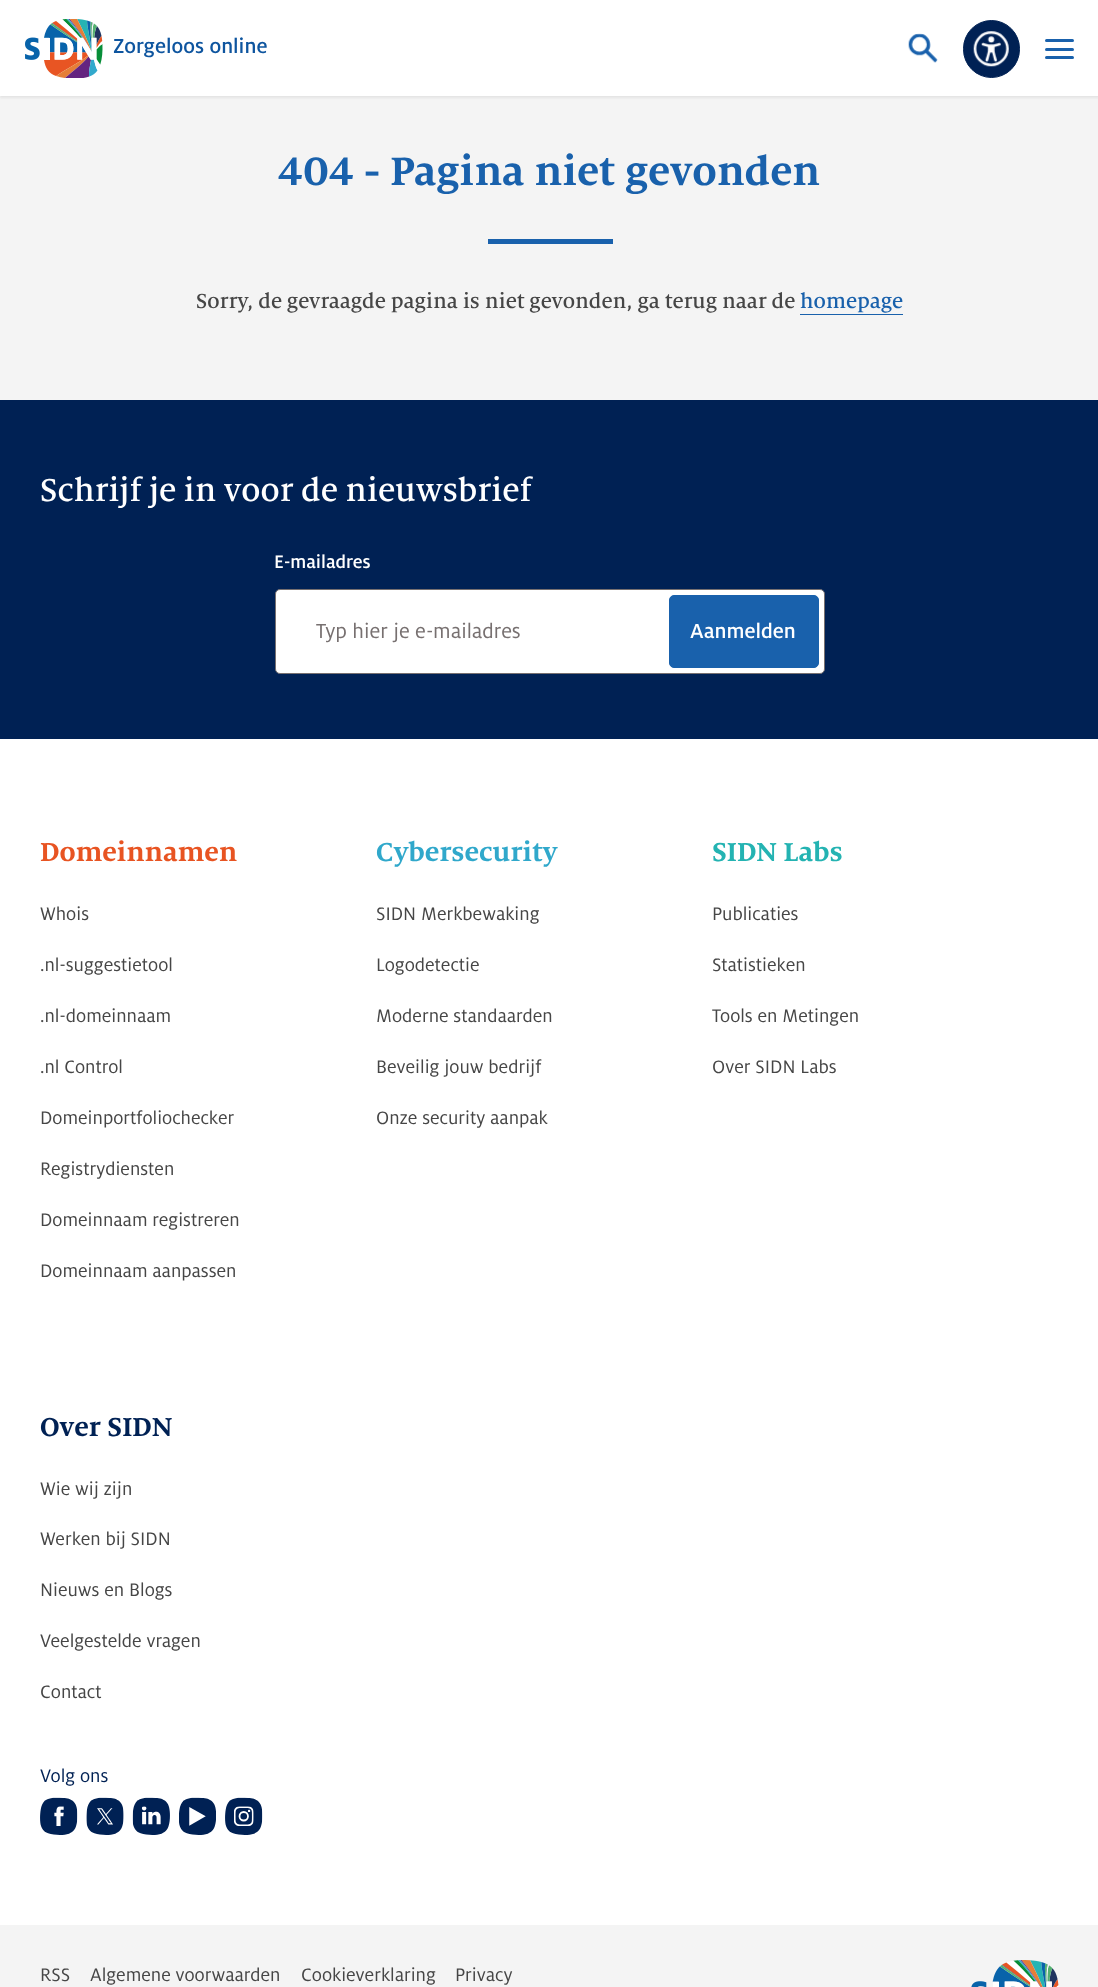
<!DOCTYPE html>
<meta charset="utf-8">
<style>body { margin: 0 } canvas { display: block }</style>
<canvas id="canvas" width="1098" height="1987"></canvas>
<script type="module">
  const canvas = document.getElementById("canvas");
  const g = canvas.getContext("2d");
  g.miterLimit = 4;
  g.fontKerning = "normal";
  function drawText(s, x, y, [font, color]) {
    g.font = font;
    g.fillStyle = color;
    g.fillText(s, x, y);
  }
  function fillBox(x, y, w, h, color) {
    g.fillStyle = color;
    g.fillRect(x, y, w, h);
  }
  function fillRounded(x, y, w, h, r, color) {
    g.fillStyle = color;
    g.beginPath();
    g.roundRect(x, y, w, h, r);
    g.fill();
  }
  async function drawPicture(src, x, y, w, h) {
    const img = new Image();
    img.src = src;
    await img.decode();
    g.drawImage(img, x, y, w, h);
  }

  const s1 = ["500 22.5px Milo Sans", "#0E559F"];
  const s2 = ["bold 43.75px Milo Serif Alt", "#1961AC"];
  const s3 = ["500 22.5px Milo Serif", "#464646"];
  const s4 = ["500 22.5px Milo Serif", "#1961AC"];
  const s5 = ["500 35px Milo Serif", "#FFFFFF"];
  const s6 = ["500 20px Milo Sans", "#FFFFFF"];
  const s7 = ["22.5px Milo Sans", "#777070"];
  const s8 = ["500 22.5px Milo Sans", "#FFFFFF"];
  const s9 = ["bold 28.75px Milo Serif", "#E85422"];
  const s10 = ["20px Milo Sans", "#464646"];
  const s11 = ["bold 28.75px Milo Serif", "#30A8CB"];
  const s12 = ["bold 28.75px Milo Serif", "#24B3B2"];
  const s13 = ["bold 28.75px Milo Serif", "#002154"];
  const s14 = ["20px Milo Sans", "#002154"];

  fillBox(0, 0, 1098, 1987, "#002154");
  fillBox(0, 96, 1098, 304, "#F4F4F4");
  g.fillStyle = "rgba(140, 140, 140, 0.15)";
  g.filter = "blur(1px)";
  g.beginPath();
  g.rect(0, 1, 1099, 97);
  g.fill();
  g.filter = "none";
  fillBox(0, 0, 1098, 96, "#FFFFFF");
  await drawPicture("pic1.png", 25, 19, 78, 59);
  drawText("Zorgeloos online", 113, 53, s1);
  await drawPicture("pic2.png", 908, 33, 30, 30);
  g.fillStyle = "#002154";
  g.beginPath();
  g.roundRect(963.5, 20.5, 56, 57, 28);
  g.fill();
  g.strokeStyle = "#002154";
  g.stroke();
  await drawPicture("pic3.png", 973, 31, 36, 36);
  fillRounded(1045, 39, 29, 3, 1.5, "#1961AC");
  fillRounded(1045, 48, 29, 3, 1.5, "#1961AC");
  fillRounded(1045, 56, 29, 3, 1.5, "#1961AC");
  drawText("404 - Pagina niet gevonden", 278, 185, s2);
  fillBox(488, 239, 125, 5, "#1961AC");
  drawText("Sorry, de gevraagde pagina is niet gevonden, ga terug naar de", 196, 308, s3);
  drawText("homepage", 800, 308, s4);
  fillBox(800, 314, 103, 1, "#1961AC");
  drawText("Schrijf je in voor de nieuwsbrief", 40, 501, s5);
  drawText("E-mailadres", 274, 568, s6);
  g.beginPath();
  g.roundRect(275.5, 589.5, 549, 84, 4.5);
  g.fill();
  g.strokeStyle = "#777070";
  g.stroke();
  drawText("Typ hier je e-mailadres", 316, 638, s7);
  g.fillStyle = "#1961AC";
  g.beginPath();
  g.roundRect(669.5, 595.5, 149, 72, 4.5);
  g.fill();
  g.strokeStyle = "#1961AC";
  g.stroke();
  drawText("Aanmelden", 690, 638, s8);
  fillBox(0, 739, 1098, 1186, "#FFFFFF");
  drawText("Domeinnamen", 40, 861, s9);
  drawText("Whois", 40, 920, s10);
  drawText(".nl-suggestietool", 40, 971, s10);
  drawText(".nl-domeinnaam", 40, 1022, s10);
  drawText(".nl Control", 40, 1073, s10);
  drawText("Domeinportfoliochecker", 40, 1124, s10);
  drawText("Registrydiensten", 40, 1175, s10);
  drawText("Domeinnaam registreren", 40, 1226, s10);
  drawText("Domeinnaam aanpassen", 40, 1277, s10);
  drawText("Cybersecurity", 376, 861, s11);
  drawText("SIDN Merkbewaking", 376, 920, s10);
  drawText("Logodetectie", 376, 971, s10);
  drawText("Moderne standaarden", 376, 1022, s10);
  drawText("Beveilig jouw bedrijf", 376, 1073, s10);
  drawText("Onze security aanpak", 376, 1124, s10);
  drawText("SIDN Labs", 712, 861, s12);
  drawText("Publicaties", 712, 920, s10);
  drawText("Statistieken", 712, 971, s10);
  drawText("Tools en Metingen", 712, 1022, s10);
  drawText("Over SIDN Labs", 712, 1073, s10);
  drawText("Over SIDN", 40, 1436, s13);
  drawText("Wie wij zijn", 40, 1495, s10);
  drawText("Werken bij SIDN", 40, 1545, s10);
  drawText("Nieuws en Blogs", 40, 1596, s10);
  drawText("Veelgestelde vragen", 40, 1647, s10);
  drawText("Contact", 40, 1698, s10);
  drawText("Volg ons", 40, 1782, s14);
  await drawPicture("pic4.png", 40, 1797, 38, 38);
  await drawPicture("pic5.png", 54, 1806, 10, 20);
  await drawPicture("pic6.png", 86, 1797, 38, 38);
  await drawPicture("pic7.png", 97, 1808, 16, 17);
  await drawPicture("pic8.png", 132, 1797, 38, 38);
  await drawPicture("pic9.png", 141, 1806, 20, 19);
  await drawPicture("pic10.png", 179, 1797, 37, 38);
  await drawPicture("pic11.png", 189, 1807, 17, 19);
  await drawPicture("pic12.png", 225, 1797, 38, 38);
  await drawPicture("pic13.png", 234, 1806, 20, 20);
  fillBox(0, 1925, 1098, 62, "#F4F4F4");
  drawText("RSS", 40, 1981, s10);
  drawText("Algemene voorwaarden", 90, 1981, s10);
  drawText("Cookieverklaring", 301, 1981, s10);
  drawText("Privacy", 455, 1981, s10);
  await drawPicture("pic14.png", 971, 1960, 88, 27);
</script>
